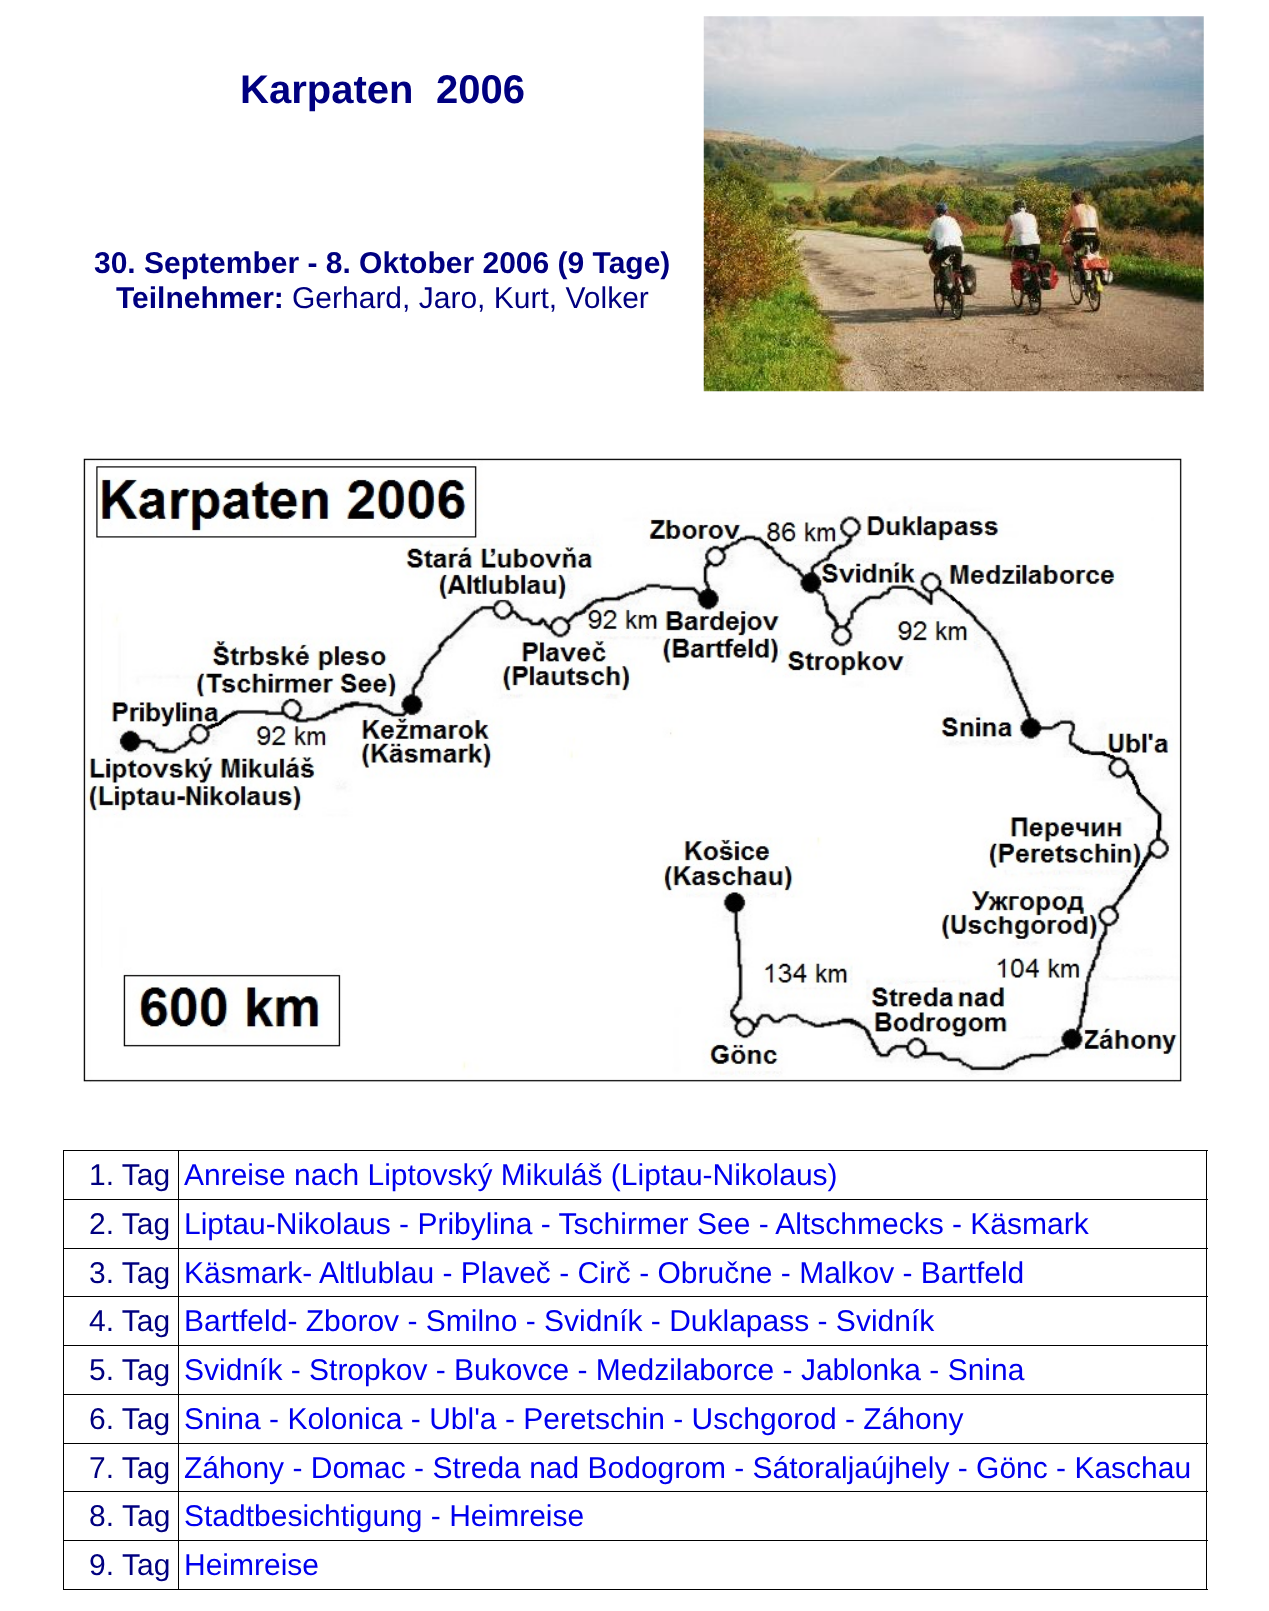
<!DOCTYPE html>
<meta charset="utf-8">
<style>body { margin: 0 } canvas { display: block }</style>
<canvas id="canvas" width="1269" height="1611"></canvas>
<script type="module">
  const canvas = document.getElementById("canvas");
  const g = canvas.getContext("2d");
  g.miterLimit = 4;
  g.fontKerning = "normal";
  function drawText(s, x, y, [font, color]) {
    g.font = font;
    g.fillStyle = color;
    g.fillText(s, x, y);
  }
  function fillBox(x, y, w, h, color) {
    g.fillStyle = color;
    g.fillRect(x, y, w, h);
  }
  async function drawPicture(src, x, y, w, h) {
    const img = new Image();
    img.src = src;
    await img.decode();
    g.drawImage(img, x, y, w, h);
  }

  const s1 = ["bold 40px Liberation Sans", "#000080"];
  const s2 = ["bold 30px Liberation Sans", "#000080"];
  const s3 = ["30px Liberation Sans", "#000080"];
  const s4 = ["30px Liberation Sans", "#0000EE"];

  fillBox(0, 0, 1269, 1611, "#FFFFFF");
  drawText("Karpaten", 240, 103, s1);
  drawText("2006", 436, 103, s1);
  await drawPicture("pic1.png", 703, 16, 501, 376);
  drawText("30. September - 8. Oktober 2006 (9 Tage)", 94, 273, s2);
  drawText("Teilnehmer:", 116, 308, s2);
  drawText("Gerhard, Jaro, Kurt, Volker", 292, 308, s3);
  await drawPicture("pic2.png", 82, 458, 1101, 625);
  fillBox(63, 1150, 1145, 1, "#000000");
  fillBox(1206, 1150, 1, 440, "#000000");
  fillBox(63, 1589, 1145, 1, "#000000");
  fillBox(63, 1150, 1, 440, "#000000");
  drawText("1. Tag", 89, 1185, s3);
  fillBox(178, 1199, 1030, 1, "#000000");
  fillBox(178, 1248, 1030, 1, "#000000");
  fillBox(178, 1296, 1030, 1, "#000000");
  fillBox(178, 1345, 1030, 1, "#000000");
  fillBox(178, 1394, 1030, 1, "#000000");
  fillBox(178, 1443, 1030, 1, "#000000");
  fillBox(178, 1491, 1030, 1, "#000000");
  fillBox(178, 1540, 1030, 1, "#000000");
  fillBox(178, 1540, 1, 50, "#000000");
  fillBox(63, 1540, 116, 1, "#000000");
  fillBox(178, 1491, 1, 50, "#000000");
  fillBox(63, 1491, 116, 1, "#000000");
  fillBox(178, 1443, 1, 50, "#000000");
  fillBox(63, 1443, 116, 1, "#000000");
  fillBox(178, 1394, 1, 50, "#000000");
  fillBox(63, 1394, 116, 1, "#000000");
  fillBox(178, 1345, 1, 50, "#000000");
  fillBox(63, 1345, 116, 1, "#000000");
  fillBox(178, 1296, 1, 50, "#000000");
  fillBox(63, 1296, 116, 1, "#000000");
  fillBox(178, 1248, 1, 50, "#000000");
  fillBox(63, 1248, 116, 1, "#000000");
  fillBox(178, 1199, 1, 50, "#000000");
  fillBox(63, 1199, 116, 1, "#000000");
  fillBox(178, 1150, 1, 50, "#000000");
  drawText("Anreise nach Liptovský Mikuláš (Liptau-Nikolaus)", 184, 1185, s4);
  drawText("2. Tag", 89, 1234, s3);
  drawText("Liptau-Nikolaus - Pribylina - Tschirmer See - Altschmecks - Käsmark", 184, 1234, s4);
  drawText("3. Tag", 89, 1283, s3);
  drawText("Käsmark- Altlublau - Plaveč - Cirč - Obručne - Malkov - Bartfeld", 184, 1283, s4);
  drawText("4. Tag", 89, 1331, s3);
  drawText("Bartfeld- Zborov - Smilno - Svidník - Duklapass - Svidník", 184, 1331, s4);
  drawText("5. Tag", 89, 1380, s3);
  drawText("Svidník - Stropkov - Bukovce - Medzilaborce - Jablonka - Snina", 184, 1380, s4);
  drawText("6. Tag", 89, 1429, s3);
  drawText("Snina - Kolonica - Ubl'a - Peretschin - Uschgorod - Záhony", 184, 1429, s4);
  drawText("7. Tag", 89, 1478, s3);
  drawText("Záhony - Domac - Streda nad Bodogrom - Sátoraljaújhely - Gönc - Kaschau", 184, 1478, s4);
  drawText("8.", 89, 1526, s3);
  drawText("Tag", 122, 1526, s3);
  drawText("Stadtbesichtigung - Heimreise", 184, 1526, s4);
  drawText("9.", 89, 1575, s3);
  drawText("Tag", 122, 1575, s3);
  drawText("Heimreise", 184, 1575, s4);
</script>
